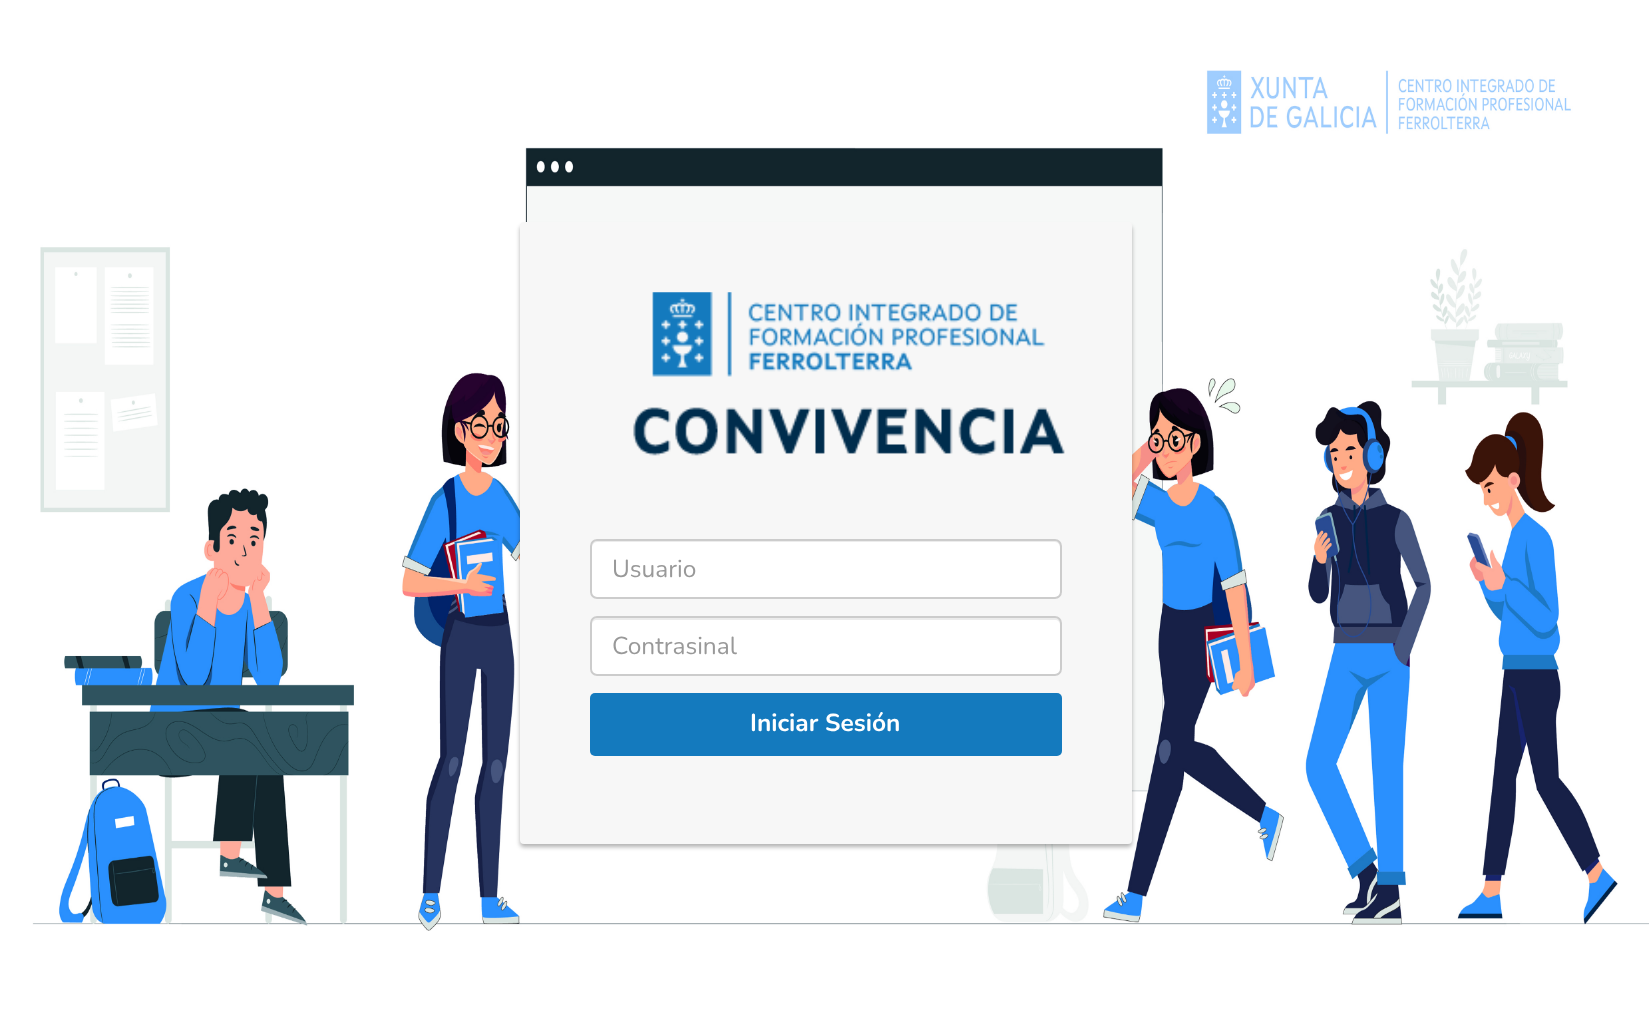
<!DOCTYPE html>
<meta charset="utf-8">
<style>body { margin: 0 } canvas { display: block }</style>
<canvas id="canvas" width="1649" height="1022"></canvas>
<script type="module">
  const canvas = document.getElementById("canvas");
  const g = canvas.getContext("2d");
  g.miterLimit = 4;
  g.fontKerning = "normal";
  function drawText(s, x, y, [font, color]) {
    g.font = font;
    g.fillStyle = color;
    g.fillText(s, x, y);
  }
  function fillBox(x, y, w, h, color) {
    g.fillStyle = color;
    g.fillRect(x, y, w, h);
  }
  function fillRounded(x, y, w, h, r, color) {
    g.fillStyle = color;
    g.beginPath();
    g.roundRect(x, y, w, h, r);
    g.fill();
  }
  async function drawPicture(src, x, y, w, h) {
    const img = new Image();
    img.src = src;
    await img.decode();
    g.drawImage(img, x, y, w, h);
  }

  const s1 = ["24.5px Nunito", "#999999"];
  const s2 = ["bold 24.5px Nunito", "#FFFFFF"];

  fillBox(0, 0, 1649, 1022, "#FFFFFF");
  await drawPicture("pic1.png", 32, 70, 1617, 861);
  g.fillStyle = "rgba(0, 0, 0, 0.3)";
  g.filter = "blur(2px)";
  g.beginPath();
  g.roundRect(520, 226, 612, 621, 4);
  g.fill();
  g.filter = "none";
  fillRounded(520, 222, 612, 622, 4, "#F7F7F7");
  await drawPicture("pic2.png", 633, 292, 432, 164);
  fillRounded(590, 539, 472, 60, 7, "#FFFFFF");
  g.fillStyle = "#ECECEC";
  g.beginPath();
  g.moveTo(597, 542);
  g.lineTo(1055, 542);
  g.bezierCurveTo(1058, 542, 1060, 545, 1060, 548);
  g.lineTo(1060, 593);
  g.lineTo(1059, 596);
  g.bezierCurveTo(1060, 595, 1061, 593, 1061, 592);
  g.lineTo(1061, 546);
  g.bezierCurveTo(1061, 543, 1059, 541, 1056, 541);
  g.lineTo(597, 541);
  g.bezierCurveTo(594, 541, 592, 543, 592, 546);
  g.lineTo(592, 548);
  g.bezierCurveTo(592, 545, 594, 542, 597, 542);
  g.closePath();
  g.fill();
  g.beginPath();
  g.roundRect(591, 540, 470, 58, 6);
  g.strokeStyle = "#CCCCCC";
  g.lineWidth = 2;
  g.stroke();
  drawText("Usuario", 612, 577, s1);
  fillRounded(590, 616, 472, 60, 7, "#FFFFFF");
  g.fillStyle = "#ECECEC";
  g.beginPath();
  g.moveTo(597, 620);
  g.lineTo(1055, 620);
  g.bezierCurveTo(1058, 620, 1060, 622, 1060, 625);
  g.lineTo(1060, 670);
  g.lineTo(1060, 673);
  g.bezierCurveTo(1060, 672, 1061, 670, 1061, 669);
  g.lineTo(1061, 623);
  g.bezierCurveTo(1061, 620, 1059, 618, 1056, 618);
  g.lineTo(597, 618);
  g.bezierCurveTo(594, 618, 592, 620, 592, 623);
  g.lineTo(592, 625);
  g.bezierCurveTo(592, 622, 594, 620, 597, 620);
  g.closePath();
  g.fill();
  g.beginPath();
  g.roundRect(591, 617, 470, 58, 6);
  g.stroke();
  drawText("Contrasinal", 612, 654, s1);
  fillRounded(590, 693, 472, 63, 5, "#147ABE");
  drawText("Iniciar Sesión", 750, 731, s2);
</script>
